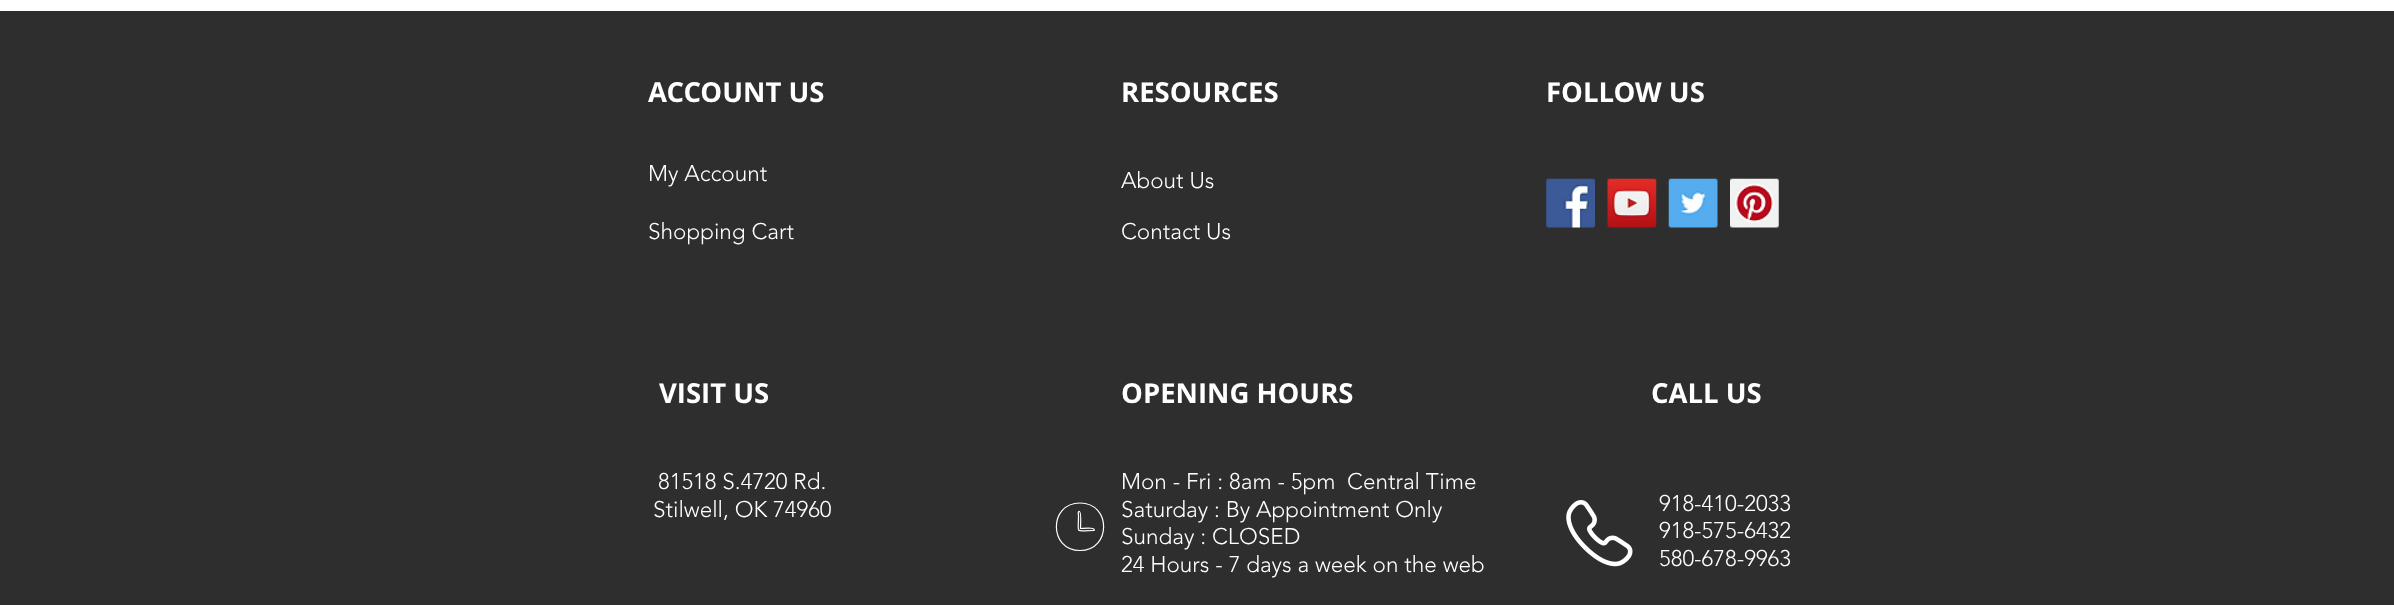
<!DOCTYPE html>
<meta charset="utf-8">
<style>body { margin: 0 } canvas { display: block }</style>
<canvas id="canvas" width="2394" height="605"></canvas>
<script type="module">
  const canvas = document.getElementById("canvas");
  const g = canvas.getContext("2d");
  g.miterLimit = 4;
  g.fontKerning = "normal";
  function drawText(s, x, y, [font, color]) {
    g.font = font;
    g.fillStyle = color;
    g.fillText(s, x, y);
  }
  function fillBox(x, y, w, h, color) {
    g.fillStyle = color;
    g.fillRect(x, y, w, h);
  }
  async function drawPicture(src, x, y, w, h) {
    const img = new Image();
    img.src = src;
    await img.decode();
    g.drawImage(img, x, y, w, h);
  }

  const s1 = ["bold 27.5px Open Sans", "#FFFFFF"];
  const s2 = ["300 22.5px 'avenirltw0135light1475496'", "#FFFFFF"];

  fillBox(0, 0, 2394, 605, "#FFFFFF");
  fillBox(0, 11, 2394, 594, "#2F2E2E");
  drawText("ACCOUNT US", 648, 102, s1);
  drawText("RESOURCES", 1121, 102, s1);
  drawText("FOLLOW US", 1546, 102, s1);
  drawText("My Account", 648, 181, s2);
  drawText("About Us", 1121, 188, s2);
  await drawPicture("pic1.png", 1546, 178, 49, 50);
  await drawPicture("pic2.png", 1607, 178, 50, 50);
  await drawPicture("pic3.png", 1668, 178, 50, 50);
  await drawPicture("pic4.png", 1730, 178, 49, 50);
  drawText("Shopping Cart", 648, 239, s2);
  drawText("Contact Us", 1121, 239, s2);
  drawText("VISIT US", 659, 403, s1);
  drawText("OPENING HOURS", 1121, 403, s1);
  drawText("CALL US", 1651, 403, s1);
  drawText("81518 S.4720 Rd.", 658, 489, s2);
  drawText("Stilwell, OK 74960", 653, 517, s2);
  g.beginPath();
  g.moveTo(1080, 503);
  g.bezierCurveTo(1048.5, 503, 1048.5, 550.5, 1080, 550.5);
  g.bezierCurveTo(1111.5, 550.5, 1111.5, 503, 1080, 503);
  g.closePath();
  g.moveTo(1093.5, 530.5);
  g.bezierCurveTo(1074.5, 530.5, 1078.5, 535, 1078.5, 515.5);
  g.bezierCurveTo(1078.5, 515, 1077.5, 511, 1079.5, 511.5);
  g.bezierCurveTo(1081.5, 512, 1080.5, 526, 1080.5, 528.5);
  g.bezierCurveTo(1083, 528.5, 1096.5, 527, 1094, 530.5);
  g.closePath();
  g.strokeStyle = "#FFFFFF";
  g.lineWidth = 1.2;
  g.stroke();
  drawText("Mon - Fri : 8am - 5pm  Central Time", 1121, 489, s2);
  drawText("Saturday : By Appointment Only", 1121, 517, s2);
  drawText("Sunday : CLOSED", 1121, 544, s2);
  drawText("24 Hours - 7 days a week on the web", 1121, 572, s2);
  await drawPicture("pic5.png", 1566, 500, 67, 67);
  drawText("918-410-2033", 1659, 511, s2);
  drawText("918-575-6432", 1659, 538, s2);
  drawText("580-678-9963", 1659, 566, s2);
</script>
